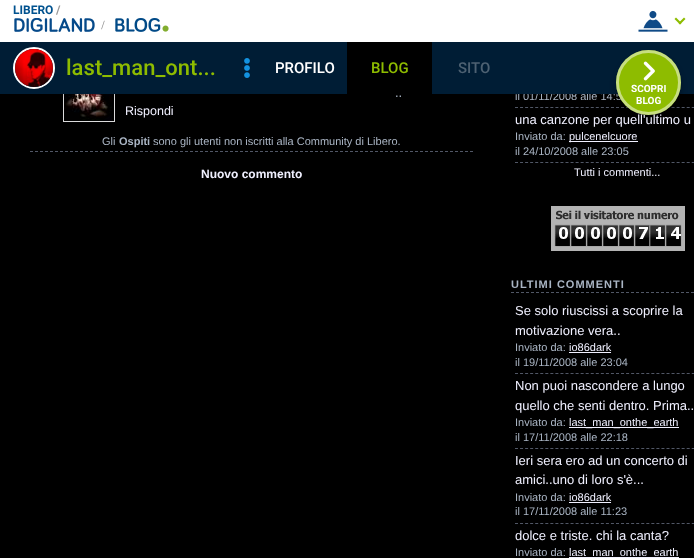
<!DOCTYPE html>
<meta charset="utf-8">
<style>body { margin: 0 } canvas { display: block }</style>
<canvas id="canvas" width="694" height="558"></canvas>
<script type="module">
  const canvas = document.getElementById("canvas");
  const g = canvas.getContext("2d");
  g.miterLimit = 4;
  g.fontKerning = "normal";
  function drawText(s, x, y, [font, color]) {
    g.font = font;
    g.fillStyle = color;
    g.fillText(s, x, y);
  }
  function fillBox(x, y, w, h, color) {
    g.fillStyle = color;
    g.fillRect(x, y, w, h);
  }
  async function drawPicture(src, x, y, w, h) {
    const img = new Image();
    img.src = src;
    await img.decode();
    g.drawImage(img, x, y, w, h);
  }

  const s1 = ["bold 12px Roboto", "#00528F"];
  const s2 = ["bold 12px Roboto", "#999999"];
  const s3 = ["11px Liberation Sans", "#AAB5C4"];
  const s4 = ["500 22px Roboto", "#8EBC00"];
  const s5 = ["500 15px Roboto", "#FFFFFF"];
  const s6 = ["500 15px Roboto", "#8EBC00"];
  const s7 = ["500 15px Roboto", "#4D6172"];
  const s8 = ["13px Liberation Sans", "#F0F0FF"];
  const s9 = ["bold 10px Roboto", "#FFFFFF"];
  const s10 = ["13px Liberation Sans", "#AAB5C4"];
  const s11 = ["12.5px Liberation Sans", "#F0F0FF"];
  const s12 = ["bold 11px Liberation Sans", "#AAB5C4"];
  const s13 = ["bold 12px Liberation Sans", "#F0F0FF"];
  const s14 = ["11px Liberation Sans", "#F0F0FF"];

  fillBox(0, 0, 694, 558, "#000000");
  g.strokeStyle = "#DBDBDC";
  g.strokeRect(63.5, 63.5, 51, 58);
  await drawPicture("pic8.png", 64, 94, 48, 27);
  g.fillStyle = "rgba(0, 0, 0, 0.2)";
  g.filter = "blur(3px)";
  g.beginPath();
  g.rect(0, 0, 694, 94);
  g.fill();
  g.filter = "none";
  fillBox(0, 0, 694, 42, "#FFFFFF");
  drawText("LIBERO", 13, 14, s1);
  drawText("/", 56, 14, s2);
  await drawPicture("pic1.png", 638, 10, 30, 22);
  g.fillStyle = "#8EBC00";
  g.beginPath();
  g.moveTo(684, 17.5);
  g.lineTo(685.5, 19);
  g.lineTo(680, 24.5);
  g.lineTo(678.5, 23);
  g.closePath();
  g.fill();
  g.beginPath();
  g.moveTo(676, 17.5);
  g.lineTo(681.5, 23);
  g.lineTo(680, 24.5);
  g.lineTo(674.5, 19);
  g.closePath();
  g.fill();
  await drawPicture("pic2.png", 14, 18, 81, 14);
  await drawPicture("pic3.png", 101, 20, 4, 10);
  await drawPicture("pic4.png", 115, 18, 54, 14);
  drawText("il 01/11/2008 alle 14:5", 515, 100, s3);
  fillBox(0, 42, 694, 52, "#001D35");
  g.beginPath();
  g.arc(34, 68, 20, 0, Math.PI * 2);
  g.strokeStyle = "#FFFFFF";
  g.lineWidth = 2;
  g.stroke();
  await drawPicture("pic5.png", 15, 49, 38, 38);
  drawText("last_man_ont...", 66, 75, s4);
  await drawPicture("pic6.png", 244, 58, 6, 20);
  drawText("PROFILO", 275, 73, s5);
  fillBox(347, 42, 85, 52, "#000000");
  drawText("BLOG", 371, 73, s6);
  drawText("SITO", 458, 73, s7);
  g.beginPath();
  g.moveTo(515, 107.5);
  g.lineTo(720, 107.5);
  g.strokeStyle = "#515766";
  g.lineWidth = 1;
  g.setLineDash([3, 2.05]);
  g.stroke();
  g.fillStyle = "rgba(0, 0, 0, 0.3)";
  g.filter = "blur(3px)";
  g.beginPath();
  g.roundRect(616, 56, 65, 65, 32.5);
  g.fill();
  g.filter = "none";
  drawText("una canzone per quell'ultimo u", 515, 124, s8);
  g.fillStyle = "#8EBC00";
  g.beginPath();
  g.arc(648.5, 82.5, 32.5, 0, Math.PI * 2);
  g.fill();
  g.beginPath();
  g.arc(648.5, 82.5, 31, 0, Math.PI * 2);
  g.strokeStyle = "rgba(255, 255, 255, 0.5)";
  g.lineWidth = 3;
  g.setLineDash([]);
  g.stroke();
  await drawPicture("pic7.png", 643, 61, 12, 20);
  drawText("SCOPRI", 631, 92, s9);
  drawText("BLOG", 636, 104, s9);
  drawText("..", 395, 97, s10);
  drawText("Rispondi", 125, 115, s11);
  drawText("Gli", 102, 145, s3);
  drawText("Ospiti", 119, 145, s12);
  drawText("sono gli utenti non iscritti alla Community di Libero.", 153, 145, s3);
  g.beginPath();
  g.moveTo(30, 151.5);
  g.lineTo(473, 151.5);
  g.strokeStyle = "#515766";
  g.lineWidth = 1;
  g.setLineDash([3, 2]);
  g.stroke();
  drawText("Nuovo commento", 201, 178, s13);
  drawText("Inviato da:", 515, 140, s3);
  fillBox(569, 141, 69, 1, "#F0F0FF");
  drawText("pulcenelcuore", 569, 140, s14);
  drawText("il 24/10/2008 alle 23:05", 515, 155, s3);
  g.beginPath();
  g.moveTo(515, 162.5);
  g.lineTo(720, 162.5);
  g.setLineDash([3, 2.05]);
  g.stroke();
  drawText("Tutti i commenti...", 574, 176, s14);
  await drawPicture("pic9.png", 551, 206, 134, 45);
  g.beginPath();
  g.moveTo(511, 292.5);
  g.lineTo(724, 292.5);
  g.setLineDash([3, 2]);
  g.stroke();
  g.letterSpacing = "1px";
  drawText("ULTIMI COMMENTI", 511, 288, s12);
  g.letterSpacing = "0px";
  drawText("Se solo riuscissi a scoprire la", 515, 315, s8);
  drawText("motivazione vera..", 515, 335, s8);
  drawText("Inviato da:", 515, 351, s3);
  drawText("io86dark", 569, 351, s14);
  fillBox(569, 352, 42, 1, "#F0F0FF");
  drawText("il 19/11/2008 alle 23:04", 515, 366, s3);
  g.beginPath();
  g.moveTo(515, 373.5);
  g.lineTo(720, 373.5);
  g.setLineDash([3, 2.05]);
  g.stroke();
  drawText("Non puoi nascondere a lungo", 515, 390, s8);
  drawText("quello che senti dentro. Prima..", 515, 410, s8);
  drawText("Inviato da:", 515, 426, s3);
  fillBox(569, 427, 110, 1, "#F0F0FF");
  drawText("last_man_onthe_earth", 569, 426, s14);
  drawText("il 17/11/2008 alle 22:18", 515, 441, s3);
  g.beginPath();
  g.moveTo(515, 448.5);
  g.lineTo(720, 448.5);
  g.stroke();
  drawText("Ieri sera ero ad un concerto di", 515, 465, s8);
  drawText("amici..uno di loro s'è...", 515, 484, s8);
  drawText("Inviato da:", 515, 501, s3);
  drawText("io86dark", 569, 501, s14);
  fillBox(569, 502, 42, 1, "#F0F0FF");
  drawText("il 17/11/2008 alle 11:23", 515, 515, s3);
  g.beginPath();
  g.moveTo(515, 523.5);
  g.lineTo(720, 523.5);
  g.stroke();
  drawText("dolce e triste. chi la canta?", 515, 540, s8);
  drawText("Inviato da:", 515, 556, s3);
  fillBox(569, 557, 110, 1, "#F0F0FF");
  drawText("last_man_onthe_earth", 569, 556, s14);
</script>
